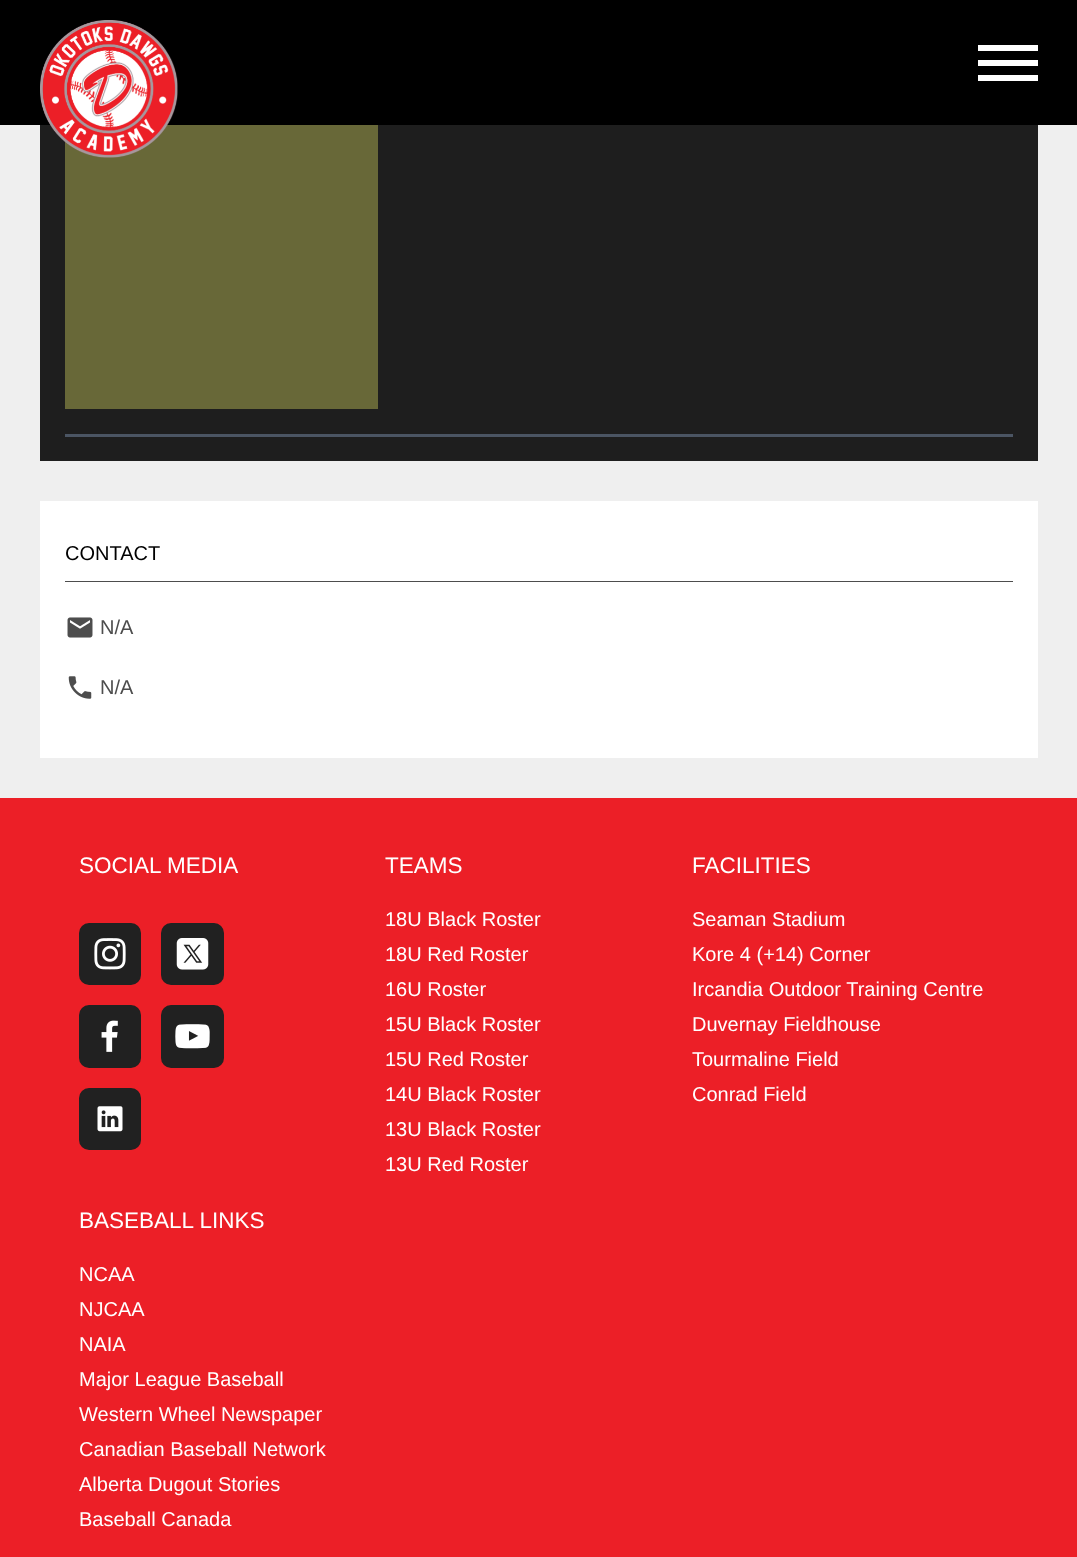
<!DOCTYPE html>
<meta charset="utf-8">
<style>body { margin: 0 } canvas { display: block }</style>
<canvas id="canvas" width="1077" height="1557"></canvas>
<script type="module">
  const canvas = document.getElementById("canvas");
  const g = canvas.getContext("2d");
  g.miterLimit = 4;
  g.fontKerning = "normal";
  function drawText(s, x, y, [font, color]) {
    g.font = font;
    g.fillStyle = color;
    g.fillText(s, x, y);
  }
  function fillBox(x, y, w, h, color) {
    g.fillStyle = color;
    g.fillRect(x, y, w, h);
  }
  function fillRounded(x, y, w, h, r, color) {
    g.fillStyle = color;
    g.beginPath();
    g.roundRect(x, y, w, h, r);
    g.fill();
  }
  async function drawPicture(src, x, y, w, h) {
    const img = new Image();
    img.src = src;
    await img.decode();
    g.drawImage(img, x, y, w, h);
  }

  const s1 = ["20px Liberation Sans", "#000000"];
  const s2 = ["20px Liberation Sans", "#4D4D4D"];
  const s3 = ["22.5px Liberation Sans", "#FFFFFF"];
  const s4 = ["20px Liberation Sans", "#FFFFFF"];

  fillBox(0, 0, 1077, 1557, "#EC1F27");
  fillBox(0, 0, 1077, 125, "#000000");
  fillBox(0, 125, 1077, 673, "#EFEFEF");
  fillBox(40, 125, 998, 336, "#1E1E1E");
  fillBox(65, 125, 313, 284, "#686838");
  await drawPicture("pic1.png", 40, 20, 138, 138);
  fillBox(978, 60, 60, 6, "#FFFFFF");
  fillBox(978, 45, 60, 6, "#FFFFFF");
  fillBox(978, 75, 60, 6, "#FFFFFF");
  fillBox(65, 434, 948, 3, "#4B5563");
  fillBox(40, 501, 998, 257, "#FFFFFF");
  fillBox(65, 581, 948, 1, "#4D4D4D");
  drawText("CONTACT", 65, 560, s1);
  await drawPicture("pic2.png", 67, 617, 26, 21);
  drawText("N/A", 100, 634, s2);
  await drawPicture("pic3.png", 68, 676, 24, 23);
  drawText("N/A", 100, 694, s2);
  drawText("SOCIAL MEDIA", 79, 873, s3);
  fillRounded(79, 923, 62, 62, 10, "#212121");
  await drawPicture("pic4.png", 94, 938, 32, 32);
  fillRounded(161, 923, 63, 62, 10, "#212121");
  await drawPicture("pic5.png", 176, 938, 33, 32);
  fillRounded(79, 1005, 62, 63, 10, "#212121");
  await drawPicture("pic6.png", 101, 1020, 17, 32);
  fillRounded(161, 1005, 63, 63, 10, "#212121");
  await drawPicture("pic7.png", 175, 1024, 35, 25);
  fillRounded(79, 1088, 62, 62, 10, "#212121");
  await drawPicture("pic8.png", 97, 1106, 26, 26);
  drawText("TEAMS", 385, 873, s3);
  drawText("18U Black Roster", 385, 926, s4);
  drawText("18U Red Roster", 385, 961, s4);
  drawText("16U Roster", 385, 996, s4);
  drawText("15U Black Roster", 385, 1031, s4);
  drawText("15U Red Roster", 385, 1066, s4);
  drawText("14U Black Roster", 385, 1101, s4);
  drawText("13U Black Roster", 385, 1136, s4);
  drawText("13U Red Roster", 385, 1171, s4);
  drawText("FACILITIES", 692, 873, s3);
  drawText("Seaman Stadium", 692, 926, s4);
  drawText("Kore 4 (+14) Corner", 692, 961, s4);
  drawText("Ircandia Outdoor Training Centre", 692, 996, s4);
  drawText("Duvernay Fieldhouse", 692, 1031, s4);
  drawText("Tourmaline Field", 692, 1066, s4);
  drawText("Conrad Field", 692, 1101, s4);
  drawText("BASEBALL LINKS", 79, 1228, s3);
  drawText("NCAA", 79, 1281, s4);
  drawText("NJCAA", 79, 1316, s4);
  drawText("NAIA", 79, 1351, s4);
  drawText("Major League Baseball", 79, 1386, s4);
  drawText("Western Wheel Newspaper", 79, 1421, s4);
  drawText("Canadian Baseball Network", 79, 1456, s4);
  drawText("Alberta Dugout Stories", 79, 1491, s4);
  drawText("Baseball Canada", 79, 1526, s4);
</script>
